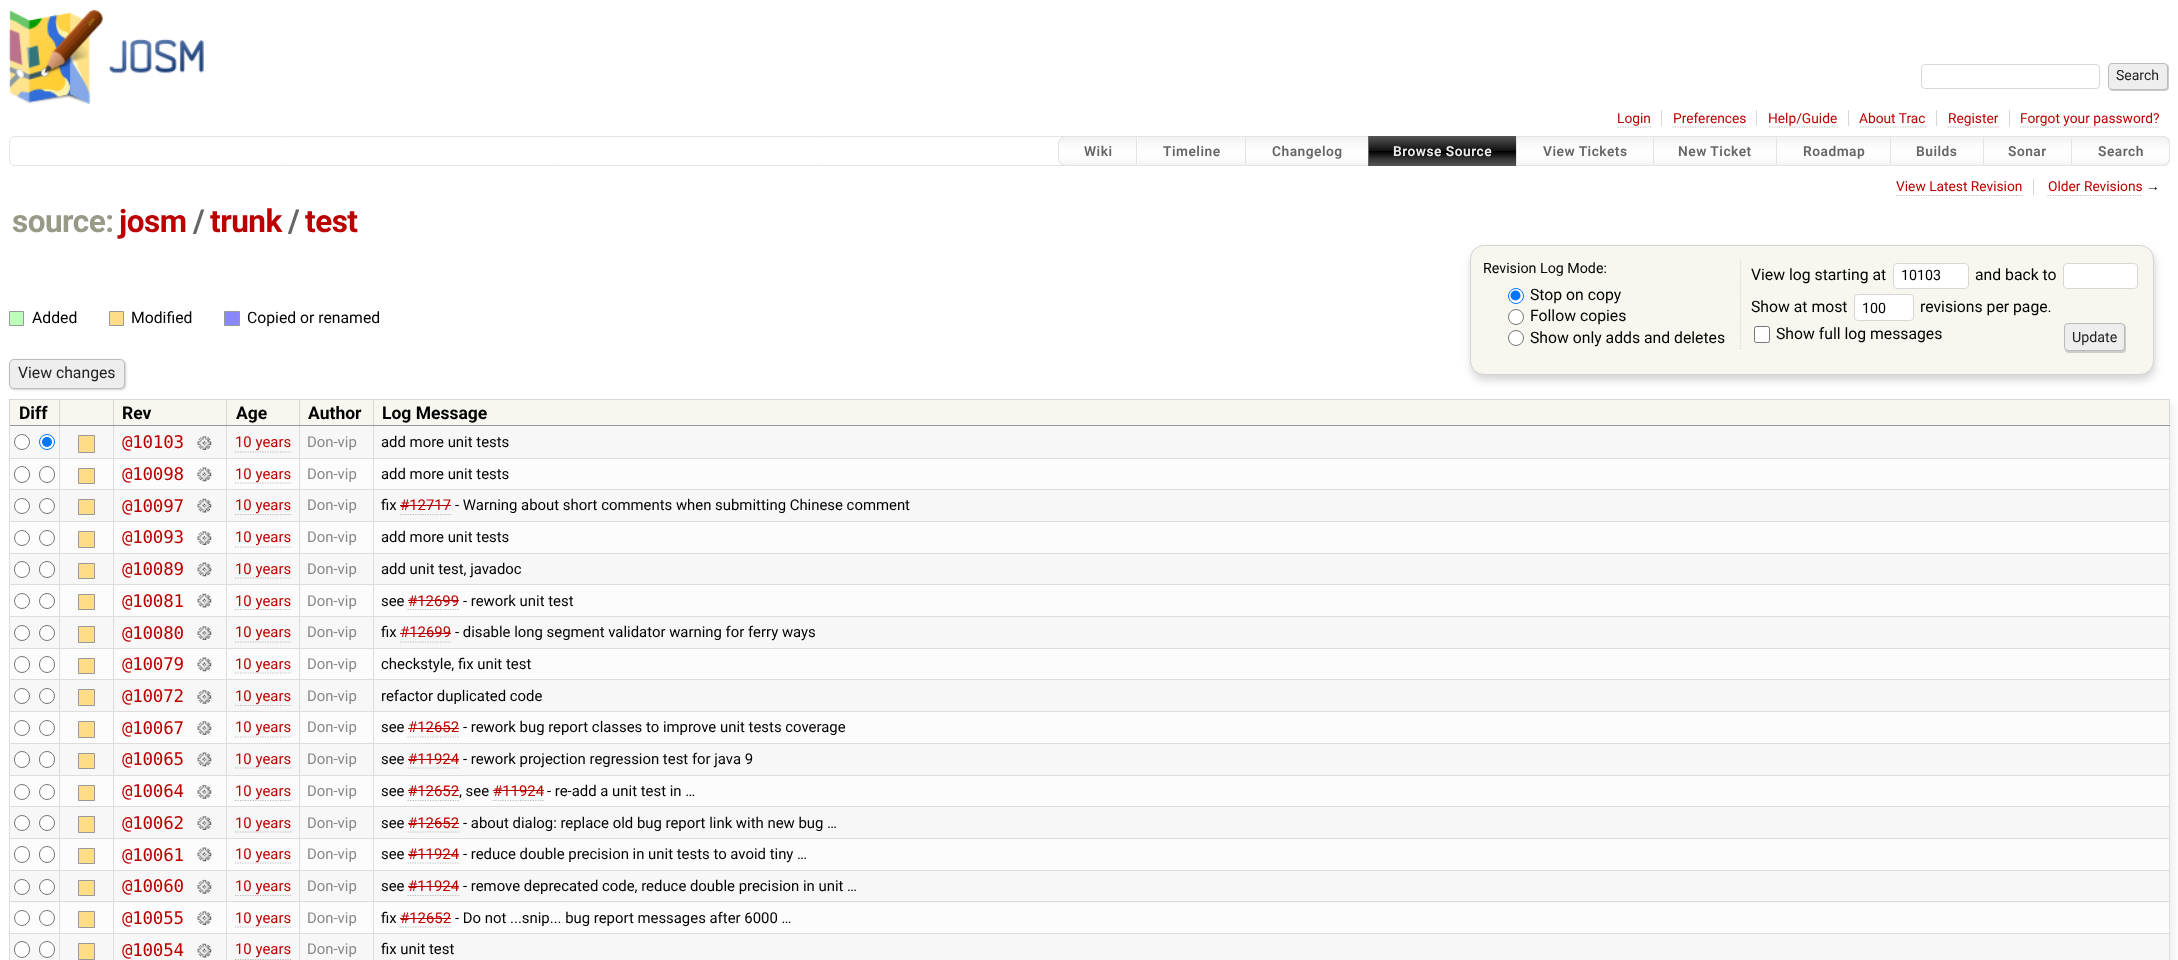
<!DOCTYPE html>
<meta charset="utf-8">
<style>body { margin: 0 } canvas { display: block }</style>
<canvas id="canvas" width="2178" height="960"></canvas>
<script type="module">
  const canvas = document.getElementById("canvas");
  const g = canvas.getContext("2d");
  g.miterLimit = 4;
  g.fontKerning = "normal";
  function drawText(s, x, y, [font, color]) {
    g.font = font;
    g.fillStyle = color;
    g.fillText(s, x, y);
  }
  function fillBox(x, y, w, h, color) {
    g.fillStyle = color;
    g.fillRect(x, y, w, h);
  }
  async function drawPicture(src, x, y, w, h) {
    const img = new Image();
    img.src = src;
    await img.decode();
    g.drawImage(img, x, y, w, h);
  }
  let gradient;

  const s1 = ["14px Roboto", "#222222"];
  const s2 = ["13.75px Roboto", "#BB0000"];
  const s3 = ["600 13.75px Roboto", "#666666"];
  const s4 = ["600 13.75px Roboto", "#EEEEEE"];
  const s5 = ["13.75px Liberation Sans", "#000000"];
  const s6 = ["bold 31.5px Roboto", "#999988"];
  const s7 = ["bold 31.5px Roboto", "#BB0000"];
  const s8 = ["bold 31.5px Roboto", "#666666"];
  const s9 = ["15.75px Roboto", "#000000"];
  const s10 = ["14.25px Roboto", "#000000"];
  const s11 = ["14.25px Roboto", "#222222"];
  const s12 = ["15.75px Roboto", "#222222"];
  const s13 = ["bold 17.5px Roboto", "#000000"];
  const s14 = ["17.5px DejaVu Sans Mono", "#BB0000"];
  const s15 = ["14.9px Roboto", "#BB0000"];
  const s16 = ["14.9px Roboto", "#888888"];
  const s17 = ["14.9px Roboto", "#000000"];

  fillBox(0, 0, 2178, 960, "#FFFFFF");
  await drawPicture("pic1.png", 8, 9, 196, 95);
  g.beginPath();
  g.roundRect(1921.5, 64.5, 178, 24, 3.5);
  g.strokeStyle = "#D7D7D7";
  g.stroke();
  g.fillStyle = "#CCCCCC";
  g.filter = "blur(0.5px)";
  g.beginPath();
  g.roundRect(2109, 64, 60, 27, 4);
  g.fill();
  g.filter = "none";
  g.fillStyle = "#EEEEEE";
  g.beginPath();
  g.roundRect(2108.5, 63.5, 59, 26, 3.5);
  g.fill();
  g.strokeStyle = "#BBBBBB";
  g.stroke();
  drawText("Search", 2116, 80, s1);
  fillBox(1661, 110, 1, 16, "#D7D7D7");
  drawText("Login", 1617, 123, s2);
  g.beginPath();
  g.moveTo(1617.5, 127);
  g.lineTo(1651, 127);
  g.lineWidth = 1.2;
  g.setLineDash([1.25, 1.25]);
  g.stroke();
  fillBox(1756, 110, 1, 16, "#D7D7D7");
  drawText("Preferences", 1673, 123, s2);
  g.beginPath();
  g.moveTo(1672.5, 127);
  g.lineTo(1746, 127);
  g.stroke();
  fillBox(1848, 110, 1, 16, "#D7D7D7");
  drawText("Help/Guide", 1768, 123, s2);
  g.beginPath();
  g.moveTo(1769, 127);
  g.lineTo(1837.5, 127);
  g.stroke();
  fillBox(1936, 110, 1, 16, "#D7D7D7");
  drawText("About Trac", 1859, 123, s2);
  g.beginPath();
  g.moveTo(1860, 127);
  g.lineTo(1926, 127);
  g.stroke();
  fillBox(2009, 110, 1, 16, "#D7D7D7");
  drawText("Register", 1948, 123, s2);
  g.beginPath();
  g.moveTo(1947.5, 127);
  g.lineTo(1999, 127);
  g.stroke();
  drawText("Forgot your password?", 2020, 123, s2);
  g.beginPath();
  g.moveTo(2020, 127);
  g.lineTo(2160, 127);
  g.stroke();
  g.beginPath();
  g.roundRect(9.5, 136.5, 2160, 29, 5.5);
  g.strokeStyle = "#E4E4E4";
  g.lineWidth = 1;
  g.setLineDash([]);
  g.stroke();
  g.save();
  g.beginPath();
  g.roundRect(1058, 136, 81, 30, [8, 0, 0, 8]);
  g.clip();
  gradient = g.createLinearGradient(1098, 110, 1098, 138);
  gradient.addColorStop(0, "#F2F2F2");
  gradient.addColorStop(0.25, "#FAFAFA");
  gradient.addColorStop(0.49, "#FEFEFE");
  gradient.addColorStop(0.51, "#FFFFFF");
  gradient.addColorStop(0.85, "#FAFAFA");
  gradient.addColorStop(1, "#F2F2F2");
  g.fillStyle = gradient;
  g.fillRect(1058, 136, 81, 2);
  gradient = g.createLinearGradient(1098, 138, 1098, 165);
  gradient.addColorStop(0, "#F2F2F2");
  gradient.addColorStop(0.25, "#FAFAFA");
  gradient.addColorStop(0.49, "#FEFEFE");
  gradient.addColorStop(0.51, "#FFFFFF");
  gradient.addColorStop(0.85, "#FAFAFA");
  gradient.addColorStop(1, "#F2F2F2");
  g.fillStyle = gradient;
  g.fillRect(1058, 138, 78, 27);
  g.restore();
  g.beginPath();
  g.roundRect(1058.5, 136.5, 80, 29, [7.5, 0, 0, 7.5]);
  g.stroke();
  g.letterSpacing = "0.5px";
  drawText("Wiki", 1084, 156, s3);
  gradient = g.createLinearGradient(1191, 110, 1191, 138);
  gradient.addColorStop(0, "#F2F2F2");
  gradient.addColorStop(0.25, "#FAFAFA");
  gradient.addColorStop(0.49, "#FEFEFE");
  gradient.addColorStop(0.51, "#FFFFFF");
  gradient.addColorStop(0.85, "#FAFAFA");
  gradient.addColorStop(1, "#F2F2F2");
  g.fillStyle = gradient;
  g.fillRect(1136, 137, 110, 1);
  gradient = g.createLinearGradient(1191, 138, 1191, 165);
  gradient.addColorStop(0, "#F2F2F2");
  gradient.addColorStop(0.25, "#FAFAFA");
  gradient.addColorStop(0.49, "#FEFEFE");
  gradient.addColorStop(0.51, "#FFFFFF");
  gradient.addColorStop(0.85, "#FAFAFA");
  gradient.addColorStop(1, "#F2F2F2");
  g.fillStyle = gradient;
  g.fillRect(1138, 138, 107, 27);
  g.strokeRect(1136.5, 136.5, 109, 29);
  drawText("Timeline", 1163, 156, s3);
  gradient = g.createLinearGradient(1307, 110, 1307, 138);
  gradient.addColorStop(0, "#F2F2F2");
  gradient.addColorStop(0.25, "#FAFAFA");
  gradient.addColorStop(0.49, "#FEFEFE");
  gradient.addColorStop(0.51, "#FFFFFF");
  gradient.addColorStop(0.85, "#FAFAFA");
  gradient.addColorStop(1, "#F2F2F2");
  g.fillStyle = gradient;
  g.fillRect(1245, 137, 124, 1);
  gradient = g.createLinearGradient(1307, 138, 1307, 165);
  gradient.addColorStop(0, "#F2F2F2");
  gradient.addColorStop(0.25, "#FAFAFA");
  gradient.addColorStop(0.49, "#FEFEFE");
  gradient.addColorStop(0.51, "#FFFFFF");
  gradient.addColorStop(0.85, "#FAFAFA");
  gradient.addColorStop(1, "#F2F2F2");
  g.fillStyle = gradient;
  g.fillRect(1246, 138, 122, 27);
  g.strokeRect(1245.5, 136.5, 123, 29);
  drawText("Changelog", 1272, 156, s3);
  g.strokeStyle = "#666666";
  g.strokeRect(1368.5, 136.5, 149, 29);
  gradient = g.createLinearGradient(1443, 136, 1443, 166);
  gradient.addColorStop(0, "#555555");
  gradient.addColorStop(0.25, "#333333");
  gradient.addColorStop(0.49, "#111111");
  gradient.addColorStop(0.51, "#000000");
  gradient.addColorStop(0.75, "#333333");
  gradient.addColorStop(1, "#555555");
  g.fillStyle = gradient;
  g.fillRect(1369, 136, 147, 30);
  drawText("Browse Source", 1393, 156, s4);
  gradient = g.createLinearGradient(1585, 110, 1585, 138);
  gradient.addColorStop(0, "#F2F2F2");
  gradient.addColorStop(0.25, "#FAFAFA");
  gradient.addColorStop(0.49, "#FEFEFE");
  gradient.addColorStop(0.51, "#FFFFFF");
  gradient.addColorStop(0.85, "#FAFAFA");
  gradient.addColorStop(1, "#F2F2F2");
  g.fillStyle = gradient;
  g.fillRect(1516, 137, 138, 1);
  gradient = g.createLinearGradient(1585, 138, 1585, 165);
  gradient.addColorStop(0, "#F2F2F2");
  gradient.addColorStop(0.25, "#FAFAFA");
  gradient.addColorStop(0.49, "#FEFEFE");
  gradient.addColorStop(0.51, "#FFFFFF");
  gradient.addColorStop(0.85, "#FAFAFA");
  gradient.addColorStop(1, "#F2F2F2");
  g.fillStyle = gradient;
  g.fillRect(1517, 138, 136, 27);
  g.strokeStyle = "#E4E4E4";
  g.strokeRect(1516.5, 136.5, 137, 29);
  drawText("View Tickets", 1543, 156, s3);
  gradient = g.createLinearGradient(1715, 110, 1715, 138);
  gradient.addColorStop(0, "#F2F2F2");
  gradient.addColorStop(0.25, "#FAFAFA");
  gradient.addColorStop(0.49, "#FEFEFE");
  gradient.addColorStop(0.51, "#FFFFFF");
  gradient.addColorStop(0.85, "#FAFAFA");
  gradient.addColorStop(1, "#F2F2F2");
  g.fillStyle = gradient;
  g.fillRect(1653, 137, 125, 1);
  gradient = g.createLinearGradient(1715, 138, 1715, 165);
  gradient.addColorStop(0, "#F2F2F2");
  gradient.addColorStop(0.25, "#FAFAFA");
  gradient.addColorStop(0.49, "#FEFEFE");
  gradient.addColorStop(0.51, "#FFFFFF");
  gradient.addColorStop(0.85, "#FAFAFA");
  gradient.addColorStop(1, "#F2F2F2");
  g.fillStyle = gradient;
  g.fillRect(1654, 138, 122, 27);
  g.strokeRect(1653.5, 136.5, 124, 29);
  drawText("New Ticket", 1678, 156, s3);
  gradient = g.createLinearGradient(1834, 110, 1834, 138);
  gradient.addColorStop(0, "#F2F2F2");
  gradient.addColorStop(0.25, "#FAFAFA");
  gradient.addColorStop(0.49, "#FEFEFE");
  gradient.addColorStop(0.51, "#FFFFFF");
  gradient.addColorStop(0.85, "#FAFAFA");
  gradient.addColorStop(1, "#F2F2F2");
  g.fillStyle = gradient;
  g.fillRect(1776, 137, 115, 1);
  gradient = g.createLinearGradient(1834, 138, 1834, 165);
  gradient.addColorStop(0, "#F2F2F2");
  gradient.addColorStop(0.25, "#FAFAFA");
  gradient.addColorStop(0.49, "#FEFEFE");
  gradient.addColorStop(0.51, "#FFFFFF");
  gradient.addColorStop(0.85, "#FAFAFA");
  gradient.addColorStop(1, "#F2F2F2");
  g.fillStyle = gradient;
  g.fillRect(1777, 138, 113, 27);
  g.strokeRect(1776.5, 136.5, 114, 29);
  drawText("Roadmap", 1803, 156, s3);
  gradient = g.createLinearGradient(1937, 110, 1937, 138);
  gradient.addColorStop(0, "#F2F2F2");
  gradient.addColorStop(0.25, "#FAFAFA");
  gradient.addColorStop(0.49, "#FEFEFE");
  gradient.addColorStop(0.51, "#FFFFFF");
  gradient.addColorStop(0.85, "#FAFAFA");
  gradient.addColorStop(1, "#F2F2F2");
  g.fillStyle = gradient;
  g.fillRect(1890, 137, 94, 1);
  gradient = g.createLinearGradient(1937, 138, 1937, 165);
  gradient.addColorStop(0, "#F2F2F2");
  gradient.addColorStop(0.25, "#FAFAFA");
  gradient.addColorStop(0.49, "#FEFEFE");
  gradient.addColorStop(0.51, "#FFFFFF");
  gradient.addColorStop(0.85, "#FAFAFA");
  gradient.addColorStop(1, "#F2F2F2");
  g.fillStyle = gradient;
  g.fillRect(1891, 138, 92, 27);
  g.strokeRect(1890.5, 136.5, 93, 29);
  drawText("Builds", 1916, 156, s3);
  gradient = g.createLinearGradient(2028, 110, 2028, 138);
  gradient.addColorStop(0, "#F2F2F2");
  gradient.addColorStop(0.25, "#FAFAFA");
  gradient.addColorStop(0.49, "#FEFEFE");
  gradient.addColorStop(0.51, "#FFFFFF");
  gradient.addColorStop(0.85, "#FAFAFA");
  gradient.addColorStop(1, "#F2F2F2");
  g.fillStyle = gradient;
  g.fillRect(1983, 137, 91, 1);
  gradient = g.createLinearGradient(2028, 138, 2028, 165);
  gradient.addColorStop(0, "#F2F2F2");
  gradient.addColorStop(0.25, "#FAFAFA");
  gradient.addColorStop(0.49, "#FEFEFE");
  gradient.addColorStop(0.51, "#FFFFFF");
  gradient.addColorStop(0.85, "#FAFAFA");
  gradient.addColorStop(1, "#F2F2F2");
  g.fillStyle = gradient;
  g.fillRect(1984, 138, 87, 27);
  g.strokeRect(1983.5, 136.5, 90, 29);
  drawText("Sonar", 2008, 156, s3);
  g.save();
  g.beginPath();
  g.roundRect(2071, 136, 99, 30, [0, 8, 8, 0]);
  g.clip();
  gradient = g.createLinearGradient(2121, 110, 2121, 138);
  gradient.addColorStop(0, "#F2F2F2");
  gradient.addColorStop(0.25, "#FAFAFA");
  gradient.addColorStop(0.49, "#FEFEFE");
  gradient.addColorStop(0.51, "#FFFFFF");
  gradient.addColorStop(0.85, "#FAFAFA");
  gradient.addColorStop(1, "#F2F2F2");
  g.fillStyle = gradient;
  g.fillRect(2071, 136, 99, 2);
  gradient = g.createLinearGradient(2121, 138, 2121, 165);
  gradient.addColorStop(0, "#F2F2F2");
  gradient.addColorStop(0.25, "#FAFAFA");
  gradient.addColorStop(0.49, "#FEFEFE");
  gradient.addColorStop(0.51, "#FFFFFF");
  gradient.addColorStop(0.85, "#FAFAFA");
  gradient.addColorStop(1, "#F2F2F2");
  g.fillStyle = gradient;
  g.fillRect(2072, 138, 98, 27);
  g.restore();
  g.beginPath();
  g.roundRect(2071.5, 136.5, 98, 29, [0, 7.5, 7.5, 0]);
  g.stroke();
  drawText("Search", 2098, 156, s3);
  fillBox(2033, 179, 1, 16, "#D7D7D7");
  g.letterSpacing = "0px";
  drawText("View Latest Revision", 1896, 191, s2);
  g.beginPath();
  g.moveTo(1896, 195.5);
  g.lineTo(2022.5, 195.5);
  g.strokeStyle = "#BBBBBB";
  g.lineWidth = 1.2;
  g.setLineDash([1.25, 1.25]);
  g.stroke();
  drawText("Older Revisions", 2048, 191, s2);
  g.beginPath();
  g.moveTo(2047.5, 195.5);
  g.lineTo(2142.5, 195.5);
  g.stroke();
  drawText("→", 2146, 191, s5);
  g.letterSpacing = "-0.5px";
  drawText("source:", 12, 232, s6);
  drawText("josm", 119, 232, s7);
  drawText("/", 193, 232, s8);
  drawText("trunk", 210, 232, s7);
  drawText("/", 288, 232, s8);
  drawText("test", 305, 232, s7);
  g.fillStyle = "#BBFFBB";
  g.beginPath();
  g.rect(9.5, 311.5, 14, 14);
  g.fill();
  g.strokeStyle = "#999999";
  g.lineWidth = 1;
  g.setLineDash([]);
  g.stroke();
  g.letterSpacing = "0px";
  drawText("Added", 32, 323, s9);
  g.fillStyle = "#FFDD88";
  g.beginPath();
  g.rect(109.5, 311.5, 14, 14);
  g.fill();
  g.stroke();
  drawText("Modified", 131, 323, s9);
  g.fillStyle = "#8888FF";
  g.beginPath();
  g.rect(224.5, 311.5, 15, 14);
  g.fill();
  g.stroke();
  drawText("Copied or renamed", 247, 323, s9);
  g.fillStyle = "#D4D4D4";
  g.filter = "blur(4px)";
  g.beginPath();
  g.roundRect(1471, 250, 684, 130, 14);
  g.fill();
  g.filter = "none";
  g.fillStyle = "#F7F7F0";
  g.beginPath();
  g.roundRect(1470.5, 245.5, 683, 129, 13.5);
  g.fill();
  g.strokeStyle = "#D4D4D4";
  g.stroke();
  g.beginPath();
  g.moveTo(1740.5, 260);
  g.lineTo(1740.5, 349);
  g.strokeStyle = "#D7D7D7";
  g.lineWidth = 1.2;
  g.setLineDash([1.25, 1.25]);
  g.stroke();
  drawText("Revision Log Mode:", 1483, 273, s10);
  g.fillStyle = "#FFFFFF";
  g.beginPath();
  g.arc(1516, 296, 7.5, 0, Math.PI * 2);
  g.fill();
  g.strokeStyle = "#0075FF";
  g.lineWidth = 1;
  g.setLineDash([]);
  g.stroke();
  g.fillStyle = "#0075FF";
  g.beginPath();
  g.arc(1515.5, 295.5, 5, 0, Math.PI * 2);
  g.fill();
  drawText("Stop on copy", 1530, 300, s9);
  g.fillStyle = "#FFFFFF";
  g.beginPath();
  g.arc(1516, 317, 7.5, 0, Math.PI * 2);
  g.fill();
  g.strokeStyle = "#767676";
  g.stroke();
  drawText("Follow copies", 1530, 321, s9);
  g.fillStyle = "#FFFFFF";
  g.beginPath();
  g.arc(1516, 338, 7.5, 0, Math.PI * 2);
  g.fill();
  g.stroke();
  drawText("Show only adds and deletes", 1530, 343, s9);
  drawText("View log starting at", 1751, 280, s9);
  g.fillStyle = "#FFFFFF";
  g.beginPath();
  g.roundRect(1893.5, 263.5, 75, 25, 3.5);
  g.fill();
  g.strokeStyle = "#D7D7D7";
  g.stroke();
  drawText("10103", 1901, 280, s10);
  drawText("and back to", 1975, 280, s9);
  g.fillStyle = "#FFFFFF";
  g.beginPath();
  g.roundRect(2063.5, 263.5, 74, 25, 3.5);
  g.fill();
  g.stroke();
  drawText("Show at most", 1751, 312, s9);
  g.fillStyle = "#FFFFFF";
  g.beginPath();
  g.roundRect(1854.5, 294.5, 59, 26, 3.5);
  g.fill();
  g.stroke();
  drawText("100", 1862, 313, s10);
  drawText("revisions per page.", 1920, 312, s9);
  g.fillStyle = "#FFFFFF";
  g.beginPath();
  g.roundRect(1754.5, 326.5, 15, 16, 2);
  g.fill();
  g.strokeStyle = "#767676";
  g.stroke();
  drawText("Show full log messages", 1776, 339, s9);
  g.fillStyle = "#CCCCCC";
  g.filter = "blur(0.5px)";
  g.beginPath();
  g.roundRect(2065, 324, 61, 29, 4);
  g.fill();
  g.filter = "none";
  g.fillStyle = "#EEEEEE";
  g.beginPath();
  g.roundRect(2064.5, 323.5, 60, 27, 3.5);
  g.fill();
  g.strokeStyle = "#BBBBBB";
  g.stroke();
  drawText("Update", 2072, 342, s11);
  g.fillStyle = "#CCCCCC";
  g.filter = "blur(1px)";
  g.beginPath();
  g.roundRect(10, 360, 116, 30, 5);
  g.fill();
  g.filter = "none";
  g.fillStyle = "#EEEEEE";
  g.beginPath();
  g.roundRect(9.5, 359.5, 115, 29, 4.5);
  g.fill();
  g.stroke();
  drawText("View changes", 18, 378, s12);
  g.fillStyle = "#F2F2F2";
  g.filter = "blur(3.5px)";
  g.beginPath();
  g.rect(14, 404, 2161, 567);
  g.fill();
  g.filter = "none";
  fillBox(10, 400, 2159, 25, "#F7F7F0");
  fillBox(373, 399, 1797, 1, "#D7D7D7");
  fillBox(9, 458, 2161, 1, "#DDDDDD");
  fillBox(9, 489, 2161, 1, "#DDDDDD");
  fillBox(9, 521, 2161, 1, "#DDDDDD");
  fillBox(9, 553, 2161, 1, "#DDDDDD");
  fillBox(9, 584, 2161, 1, "#DDDDDD");
  fillBox(9, 616, 2161, 1, "#DDDDDD");
  fillBox(9, 648, 2161, 1, "#DDDDDD");
  fillBox(9, 679, 2161, 1, "#DDDDDD");
  fillBox(9, 711, 2161, 1, "#DDDDDD");
  fillBox(9, 743, 2161, 1, "#DDDDDD");
  fillBox(9, 775, 2161, 1, "#DDDDDD");
  fillBox(9, 806, 2161, 1, "#DDDDDD");
  fillBox(9, 838, 2161, 1, "#DDDDDD");
  fillBox(9, 870, 2161, 1, "#DDDDDD");
  fillBox(10, 871, 2159, 32, "#F7F7F7");
  fillBox(9, 901, 2161, 1, "#DDDDDD");
  fillBox(9, 933, 2161, 1, "#DDDDDD");
  fillBox(2169, 425, 1, 535, "#DDDDDD");
  fillBox(2169, 399, 1, 27, "#D7D7D7");
  fillBox(10, 426, 2159, 32, "#F7F7F7");
  fillBox(13, 459, 2156, 30, "#FCFCFC");
  fillBox(10, 490, 2159, 31, "#F7F7F7");
  fillBox(13, 522, 2156, 31, "#FCFCFC");
  fillBox(10, 554, 2159, 30, "#F7F7F7");
  fillBox(13, 585, 2156, 31, "#FCFCFC");
  fillBox(10, 617, 2159, 31, "#F7F7F7");
  fillBox(13, 649, 2156, 30, "#FCFCFC");
  fillBox(10, 680, 2159, 31, "#F7F7F7");
  fillBox(13, 712, 2156, 31, "#FCFCFC");
  fillBox(10, 744, 2159, 31, "#F7F7F7");
  fillBox(13, 776, 2156, 30, "#FCFCFC");
  fillBox(10, 807, 2159, 31, "#F7F7F7");
  fillBox(13, 839, 2156, 31, "#FCFCFC");
  fillBox(13, 903, 2156, 30, "#FCFCFC");
  fillBox(10, 934, 2159, 26, "#F7F7F7");
  fillBox(373, 425, 1, 535, "#DDDDDD");
  fillBox(373, 425, 1797, 1, "#999999");
  fillBox(373, 399, 1, 27, "#D7D7D7");
  fillBox(299, 399, 75, 1, "#D7D7D7");
  fillBox(299, 425, 1, 535, "#DDDDDD");
  fillBox(299, 425, 75, 1, "#999999");
  fillBox(299, 399, 1, 27, "#D7D7D7");
  fillBox(226, 399, 74, 1, "#D7D7D7");
  fillBox(226, 425, 1, 535, "#DDDDDD");
  fillBox(226, 425, 74, 1, "#999999");
  fillBox(226, 399, 1, 27, "#D7D7D7");
  fillBox(113, 399, 115, 1, "#D7D7D7");
  fillBox(113, 425, 1, 535, "#DDDDDD");
  fillBox(113, 425, 115, 1, "#999999");
  fillBox(113, 399, 1, 27, "#D7D7D7");
  fillBox(59, 399, 55, 1, "#D7D7D7");
  fillBox(59, 425, 1, 535, "#DDDDDD");
  fillBox(59, 425, 55, 1, "#999999");
  fillBox(59, 399, 1, 27, "#D7D7D7");
  fillBox(9, 399, 51, 1, "#D7D7D7");
  fillBox(9, 425, 1, 535, "#DDDDDD");
  fillBox(9, 425, 51, 1, "#999999");
  fillBox(9, 399, 1, 27, "#D7D7D7");
  drawText("Diff", 19, 419, s13);
  drawText("Rev", 122, 419, s13);
  drawText("Age", 236, 419, s13);
  drawText("Author", 308, 419, s13);
  drawText("Log Message", 382, 419, s13);
  g.fillStyle = "#FFFFFF";
  g.beginPath();
  g.arc(22, 442, 7.5, 0, Math.PI * 2);
  g.fill();
  g.strokeStyle = "#767676";
  g.stroke();
  g.beginPath();
  g.arc(47, 442, 7.5, 0, Math.PI * 2);
  g.fill();
  g.strokeStyle = "#0075FF";
  g.stroke();
  g.fillStyle = "#0075FF";
  g.beginPath();
  g.arc(47, 442, 5, 0, Math.PI * 2);
  g.fill();
  g.fillStyle = "#FFDD88";
  g.beginPath();
  g.rect(78.5, 435.5, 16, 17);
  g.fill();
  g.strokeStyle = "#999999";
  g.stroke();
  g.letterSpacing = "-0.25px";
  drawText("@10103", 122, 448, s14);
  await drawPicture("pic2.png", 197, 436, 15, 14);
  g.letterSpacing = "0px";
  drawText("10 years", 235, 447, s15);
  g.beginPath();
  g.moveTo(235, 452);
  g.lineTo(291, 452);
  g.strokeStyle = "#BBBBBB";
  g.lineWidth = 1.2;
  g.setLineDash([1.25, 1.25]);
  g.stroke();
  drawText("Don-vip", 307, 447, s16);
  drawText("add more unit tests", 381, 447, s17);
  g.fillStyle = "#FFFFFF";
  g.beginPath();
  g.roundRect(14.5, 466.5, 15, 16, 7.5);
  g.fill();
  g.strokeStyle = "#767676";
  g.lineWidth = 1;
  g.setLineDash([]);
  g.stroke();
  g.beginPath();
  g.roundRect(39.5, 466.5, 15, 16, 7.5);
  g.fill();
  g.stroke();
  g.fillStyle = "#FFDD88";
  g.beginPath();
  g.rect(78.5, 468.5, 16, 15);
  g.fill();
  g.strokeStyle = "#999999";
  g.stroke();
  g.letterSpacing = "-0.25px";
  drawText("@10098", 122, 480, s14);
  await drawPicture("pic3.png", 197, 467, 15, 15);
  g.beginPath();
  g.moveTo(235, 483);
  g.lineTo(291, 483);
  g.strokeStyle = "#BBBBBB";
  g.lineWidth = 1.2;
  g.setLineDash([1.25, 1.25]);
  g.stroke();
  g.letterSpacing = "0px";
  drawText("10 years", 235, 479, s15);
  drawText("Don-vip", 307, 479, s16);
  drawText("add more unit tests", 381, 479, s17);
  g.fillStyle = "#FFFFFF";
  g.beginPath();
  g.arc(22, 506, 7.5, 0, Math.PI * 2);
  g.fill();
  g.strokeStyle = "#767676";
  g.lineWidth = 1;
  g.setLineDash([]);
  g.stroke();
  g.beginPath();
  g.arc(47, 506, 7.5, 0, Math.PI * 2);
  g.fill();
  g.stroke();
  g.fillStyle = "#FFDD88";
  g.beginPath();
  g.rect(78.5, 499.5, 16, 15);
  g.fill();
  g.strokeStyle = "#999999";
  g.stroke();
  g.letterSpacing = "-0.25px";
  drawText("@10097", 122, 512, s14);
  await drawPicture("pic4.png", 197, 498, 15, 15);
  g.beginPath();
  g.moveTo(235, 514.5);
  g.lineTo(291, 514.5);
  g.strokeStyle = "#BBBBBB";
  g.lineWidth = 1.2;
  g.setLineDash([1.25, 1.25]);
  g.stroke();
  g.letterSpacing = "0px";
  drawText("10 years", 235, 510, s15);
  drawText("Don-vip", 307, 510, s16);
  drawText("fix", 381, 510, s17);
  drawText("#12717", 400, 510, s15);
  g.beginPath();
  g.moveTo(400, 514.5);
  g.lineTo(451, 514.5);
  g.stroke();
  fillBox(400, 505, 51, 1, "#BB0000");
  drawText("- Warning about short comments when submitting Chinese comment", 455, 510, s17);
  g.fillStyle = "#FFFFFF";
  g.beginPath();
  g.arc(22, 538, 7.5, 0, Math.PI * 2);
  g.fill();
  g.strokeStyle = "#767676";
  g.lineWidth = 1;
  g.setLineDash([]);
  g.stroke();
  g.beginPath();
  g.arc(47, 538, 7.5, 0, Math.PI * 2);
  g.fill();
  g.stroke();
  g.fillStyle = "#FFDD88";
  g.beginPath();
  g.rect(78.5, 531.5, 16, 16);
  g.fill();
  g.strokeStyle = "#999999";
  g.stroke();
  g.letterSpacing = "-0.25px";
  drawText("@10093", 122, 543, s14);
  await drawPicture("pic5.png", 197, 531, 15, 14);
  g.letterSpacing = "0px";
  drawText("10 years", 235, 542, s15);
  g.beginPath();
  g.moveTo(235, 547);
  g.lineTo(291, 547);
  g.strokeStyle = "#BBBBBB";
  g.lineWidth = 1.2;
  g.setLineDash([1.25, 1.25]);
  g.stroke();
  drawText("Don-vip", 307, 542, s16);
  drawText("add more unit tests", 381, 542, s17);
  g.fillStyle = "#FFFFFF";
  g.beginPath();
  g.roundRect(14.5, 561.5, 15, 16, 7.5);
  g.fill();
  g.strokeStyle = "#767676";
  g.lineWidth = 1;
  g.setLineDash([]);
  g.stroke();
  g.beginPath();
  g.roundRect(39.5, 561.5, 15, 16, 7.5);
  g.fill();
  g.stroke();
  g.fillStyle = "#FFDD88";
  g.beginPath();
  g.rect(78.5, 563.5, 16, 15);
  g.fill();
  g.strokeStyle = "#999999";
  g.stroke();
  g.letterSpacing = "-0.25px";
  drawText("@10089", 122, 575, s14);
  await drawPicture("pic6.png", 197, 562, 15, 15);
  g.beginPath();
  g.moveTo(235, 578);
  g.lineTo(291, 578);
  g.strokeStyle = "#BBBBBB";
  g.lineWidth = 1.2;
  g.setLineDash([1.25, 1.25]);
  g.stroke();
  g.letterSpacing = "0px";
  drawText("10 years", 235, 574, s15);
  drawText("Don-vip", 307, 574, s16);
  drawText("add unit test, javadoc", 381, 574, s17);
  g.fillStyle = "#FFFFFF";
  g.beginPath();
  g.arc(22, 601, 7.5, 0, Math.PI * 2);
  g.fill();
  g.strokeStyle = "#767676";
  g.lineWidth = 1;
  g.setLineDash([]);
  g.stroke();
  g.beginPath();
  g.arc(47, 601, 7.5, 0, Math.PI * 2);
  g.fill();
  g.stroke();
  g.fillStyle = "#FFDD88";
  g.beginPath();
  g.rect(78.5, 594.5, 16, 15);
  g.fill();
  g.strokeStyle = "#999999";
  g.stroke();
  g.letterSpacing = "-0.25px";
  drawText("@10081", 122, 607, s14);
  await drawPicture("pic7.png", 197, 593, 15, 15);
  g.beginPath();
  g.moveTo(235, 609.5);
  g.lineTo(291, 609.5);
  g.strokeStyle = "#BBBBBB";
  g.lineWidth = 1.2;
  g.setLineDash([1.25, 1.25]);
  g.stroke();
  g.letterSpacing = "0px";
  drawText("10 years", 235, 606, s15);
  drawText("Don-vip", 307, 606, s16);
  drawText("see", 381, 606, s17);
  drawText("#12699", 408, 606, s15);
  g.beginPath();
  g.moveTo(407.5, 609.5);
  g.lineTo(459, 609.5);
  g.stroke();
  fillBox(408, 600, 51, 1, "#BB0000");
  drawText("- rework unit test", 463, 606, s17);
  g.fillStyle = "#FFFFFF";
  g.beginPath();
  g.arc(22, 633, 7.5, 0, Math.PI * 2);
  g.fill();
  g.strokeStyle = "#767676";
  g.lineWidth = 1;
  g.setLineDash([]);
  g.stroke();
  g.beginPath();
  g.arc(47, 633, 7.5, 0, Math.PI * 2);
  g.fill();
  g.stroke();
  g.fillStyle = "#FFDD88";
  g.beginPath();
  g.rect(78.5, 626.5, 16, 16);
  g.fill();
  g.strokeStyle = "#999999";
  g.stroke();
  g.letterSpacing = "-0.25px";
  drawText("@10080", 122, 639, s14);
  await drawPicture("pic2.png", 197, 626, 15, 14);
  g.letterSpacing = "0px";
  drawText("10 years", 235, 637, s15);
  g.beginPath();
  g.moveTo(235, 642);
  g.lineTo(291, 642);
  g.strokeStyle = "#BBBBBB";
  g.lineWidth = 1.2;
  g.setLineDash([1.25, 1.25]);
  g.stroke();
  drawText("Don-vip", 307, 637, s16);
  drawText("fix", 381, 637, s17);
  drawText("#12699", 400, 637, s15);
  g.beginPath();
  g.moveTo(400, 642);
  g.lineTo(451, 642);
  g.stroke();
  fillBox(400, 633, 51, 1, "#BB0000");
  drawText("- disable long segment validator warning for ferry ways", 455, 637, s17);
  g.fillStyle = "#FFFFFF";
  g.beginPath();
  g.roundRect(14.5, 656.5, 15, 16, 7.5);
  g.fill();
  g.strokeStyle = "#767676";
  g.lineWidth = 1;
  g.setLineDash([]);
  g.stroke();
  g.beginPath();
  g.roundRect(39.5, 656.5, 15, 16, 7.5);
  g.fill();
  g.stroke();
  g.fillStyle = "#FFDD88";
  g.beginPath();
  g.rect(78.5, 658.5, 16, 15);
  g.fill();
  g.strokeStyle = "#999999";
  g.stroke();
  g.letterSpacing = "-0.25px";
  drawText("@10079", 122, 670, s14);
  await drawPicture("pic3.png", 197, 657, 15, 15);
  g.beginPath();
  g.moveTo(235, 673);
  g.lineTo(291, 673);
  g.strokeStyle = "#BBBBBB";
  g.lineWidth = 1.2;
  g.setLineDash([1.25, 1.25]);
  g.stroke();
  g.letterSpacing = "0px";
  drawText("10 years", 235, 669, s15);
  drawText("Don-vip", 307, 669, s16);
  drawText("checkstyle, fix unit test", 381, 669, s17);
  g.fillStyle = "#FFFFFF";
  g.beginPath();
  g.arc(22, 696, 7.5, 0, Math.PI * 2);
  g.fill();
  g.strokeStyle = "#767676";
  g.lineWidth = 1;
  g.setLineDash([]);
  g.stroke();
  g.beginPath();
  g.arc(47, 696, 7.5, 0, Math.PI * 2);
  g.fill();
  g.stroke();
  g.fillStyle = "#FFDD88";
  g.beginPath();
  g.rect(78.5, 689.5, 16, 16);
  g.fill();
  g.strokeStyle = "#999999";
  g.stroke();
  g.letterSpacing = "-0.25px";
  drawText("@10072", 122, 702, s14);
  await drawPicture("pic8.png", 197, 689, 15, 15);
  g.beginPath();
  g.moveTo(235, 705.5);
  g.lineTo(291, 705.5);
  g.strokeStyle = "#BBBBBB";
  g.lineWidth = 1.2;
  g.setLineDash([1.25, 1.25]);
  g.stroke();
  g.letterSpacing = "0px";
  drawText("10 years", 235, 701, s15);
  drawText("Don-vip", 307, 701, s16);
  drawText("refactor duplicated code", 381, 701, s17);
  g.fillStyle = "#FFFFFF";
  g.beginPath();
  g.arc(22, 728, 7.5, 0, Math.PI * 2);
  g.fill();
  g.strokeStyle = "#767676";
  g.lineWidth = 1;
  g.setLineDash([]);
  g.stroke();
  g.beginPath();
  g.arc(47, 728, 7.5, 0, Math.PI * 2);
  g.fill();
  g.stroke();
  g.fillStyle = "#FFDD88";
  g.beginPath();
  g.rect(78.5, 721.5, 16, 16);
  g.fill();
  g.strokeStyle = "#999999";
  g.stroke();
  g.letterSpacing = "-0.25px";
  drawText("@10067", 122, 734, s14);
  await drawPicture("pic5.png", 197, 721, 15, 14);
  g.letterSpacing = "0px";
  drawText("10 years", 235, 732, s15);
  g.beginPath();
  g.moveTo(235, 737);
  g.lineTo(291, 737);
  g.strokeStyle = "#BBBBBB";
  g.lineWidth = 1.2;
  g.setLineDash([1.25, 1.25]);
  g.stroke();
  drawText("Don-vip", 307, 732, s16);
  drawText("see", 381, 732, s17);
  drawText("#12652", 408, 732, s15);
  g.beginPath();
  g.moveTo(407.5, 737);
  g.lineTo(459, 737);
  g.stroke();
  fillBox(408, 728, 51, 1, "#BB0000");
  drawText("- rework bug report classes to improve unit tests coverage", 463, 732, s17);
  g.fillStyle = "#FFFFFF";
  g.beginPath();
  g.roundRect(14.5, 751.5, 15, 16, 7.5);
  g.fill();
  g.strokeStyle = "#767676";
  g.lineWidth = 1;
  g.setLineDash([]);
  g.stroke();
  g.beginPath();
  g.roundRect(39.5, 751.5, 15, 16, 7.5);
  g.fill();
  g.stroke();
  g.fillStyle = "#FFDD88";
  g.beginPath();
  g.rect(78.5, 753.5, 16, 15);
  g.fill();
  g.strokeStyle = "#999999";
  g.stroke();
  g.letterSpacing = "-0.25px";
  drawText("@10065", 122, 765, s14);
  await drawPicture("pic6.png", 197, 752, 15, 15);
  g.beginPath();
  g.moveTo(235, 768);
  g.lineTo(291, 768);
  g.strokeStyle = "#BBBBBB";
  g.lineWidth = 1.2;
  g.setLineDash([1.25, 1.25]);
  g.stroke();
  g.letterSpacing = "0px";
  drawText("10 years", 235, 764, s15);
  drawText("Don-vip", 307, 764, s16);
  drawText("see", 381, 764, s17);
  drawText("#11924", 408, 764, s15);
  g.beginPath();
  g.moveTo(407.5, 768);
  g.lineTo(459, 768);
  g.stroke();
  fillBox(408, 759, 51, 1, "#BB0000");
  drawText("- rework projection regression test for java 9", 463, 764, s17);
  g.fillStyle = "#FFFFFF";
  g.beginPath();
  g.arc(22, 792, 7.5, 0, Math.PI * 2);
  g.fill();
  g.strokeStyle = "#767676";
  g.lineWidth = 1;
  g.setLineDash([]);
  g.stroke();
  g.beginPath();
  g.arc(47, 792, 7.5, 0, Math.PI * 2);
  g.fill();
  g.stroke();
  g.fillStyle = "#FFDD88";
  g.beginPath();
  g.rect(78.5, 785.5, 16, 15);
  g.fill();
  g.strokeStyle = "#999999";
  g.stroke();
  g.letterSpacing = "-0.25px";
  drawText("@10064", 122, 797, s14);
  await drawPicture("pic9.png", 197, 784, 15, 15);
  g.beginPath();
  g.moveTo(235, 800.5);
  g.lineTo(291, 800.5);
  g.strokeStyle = "#BBBBBB";
  g.lineWidth = 1.2;
  g.setLineDash([1.25, 1.25]);
  g.stroke();
  g.letterSpacing = "0px";
  drawText("10 years", 235, 796, s15);
  drawText("Don-vip", 307, 796, s16);
  drawText("see", 381, 796, s17);
  drawText("#12652", 408, 796, s15);
  g.beginPath();
  g.moveTo(407.5, 800.5);
  g.lineTo(459, 800.5);
  g.stroke();
  fillBox(408, 790, 51, 1, "#BB0000");
  drawText(", see", 459, 796, s17);
  drawText("#11924", 493, 796, s15);
  g.beginPath();
  g.moveTo(492.5, 800.5);
  g.lineTo(544, 800.5);
  g.stroke();
  fillBox(493, 790, 51, 1, "#BB0000");
  drawText("- re-add a unit test in …", 547, 796, s17);
  g.fillStyle = "#FFFFFF";
  g.beginPath();
  g.arc(22, 823, 7.5, 0, Math.PI * 2);
  g.fill();
  g.strokeStyle = "#767676";
  g.lineWidth = 1;
  g.setLineDash([]);
  g.stroke();
  g.beginPath();
  g.arc(47, 823, 7.5, 0, Math.PI * 2);
  g.fill();
  g.stroke();
  g.fillStyle = "#FFDD88";
  g.beginPath();
  g.rect(78.5, 816.5, 16, 16);
  g.fill();
  g.strokeStyle = "#999999";
  g.stroke();
  g.letterSpacing = "-0.25px";
  drawText("@10062", 122, 829, s14);
  await drawPicture("pic2.png", 197, 816, 15, 14);
  g.beginPath();
  g.moveTo(235, 832);
  g.lineTo(291, 832);
  g.strokeStyle = "#BBBBBB";
  g.lineWidth = 1.2;
  g.setLineDash([1.25, 1.25]);
  g.stroke();
  g.letterSpacing = "0px";
  drawText("10 years", 235, 828, s15);
  drawText("Don-vip", 307, 828, s16);
  drawText("see", 381, 828, s17);
  drawText("#12652", 408, 828, s15);
  g.beginPath();
  g.moveTo(407.5, 832);
  g.lineTo(459, 832);
  g.stroke();
  fillBox(408, 823, 51, 1, "#BB0000");
  drawText("- about dialog: replace old bug report link with new bug …", 463, 828, s17);
  g.fillStyle = "#FFFFFF";
  g.beginPath();
  g.roundRect(14.5, 846.5, 15, 16, 7.5);
  g.fill();
  g.strokeStyle = "#767676";
  g.lineWidth = 1;
  g.setLineDash([]);
  g.stroke();
  g.beginPath();
  g.roundRect(39.5, 846.5, 15, 16, 7.5);
  g.fill();
  g.stroke();
  g.fillStyle = "#FFDD88";
  g.beginPath();
  g.rect(78.5, 848.5, 16, 15);
  g.fill();
  g.strokeStyle = "#999999";
  g.stroke();
  g.letterSpacing = "-0.25px";
  drawText("@10061", 122, 861, s14);
  await drawPicture("pic3.png", 197, 847, 15, 15);
  g.beginPath();
  g.moveTo(235, 863);
  g.lineTo(291, 863);
  g.strokeStyle = "#BBBBBB";
  g.lineWidth = 1.2;
  g.setLineDash([1.25, 1.25]);
  g.stroke();
  g.letterSpacing = "0px";
  drawText("10 years", 235, 859, s15);
  drawText("Don-vip", 307, 859, s16);
  drawText("see", 381, 859, s17);
  drawText("#11924", 408, 859, s15);
  g.beginPath();
  g.moveTo(407.5, 863);
  g.lineTo(459, 863);
  g.stroke();
  fillBox(408, 854, 51, 1, "#BB0000");
  drawText("- reduce double precision in unit tests to avoid tiny …", 463, 859, s17);
  g.fillStyle = "#FFFFFF";
  g.beginPath();
  g.arc(22, 887, 7.5, 0, Math.PI * 2);
  g.fill();
  g.strokeStyle = "#767676";
  g.lineWidth = 1;
  g.setLineDash([]);
  g.stroke();
  g.beginPath();
  g.arc(47, 887, 7.5, 0, Math.PI * 2);
  g.fill();
  g.stroke();
  g.fillStyle = "#FFDD88";
  g.beginPath();
  g.rect(78.5, 880.5, 16, 15);
  g.fill();
  g.strokeStyle = "#999999";
  g.stroke();
  g.letterSpacing = "-0.25px";
  drawText("@10060", 122, 892, s14);
  await drawPicture("pic8.png", 197, 879, 15, 15);
  g.beginPath();
  g.moveTo(235, 895.5);
  g.lineTo(291, 895.5);
  g.strokeStyle = "#BBBBBB";
  g.lineWidth = 1.2;
  g.setLineDash([1.25, 1.25]);
  g.stroke();
  g.letterSpacing = "0px";
  drawText("10 years", 235, 891, s15);
  drawText("Don-vip", 307, 891, s16);
  drawText("see", 381, 891, s17);
  drawText("#11924", 408, 891, s15);
  g.beginPath();
  g.moveTo(407.5, 895.5);
  g.lineTo(459, 895.5);
  g.stroke();
  fillBox(408, 886, 51, 1, "#BB0000");
  drawText("- remove deprecated code, reduce double precision in unit …", 463, 891, s17);
  g.fillStyle = "#FFFFFF";
  g.beginPath();
  g.arc(22, 918, 7.5, 0, Math.PI * 2);
  g.fill();
  g.strokeStyle = "#767676";
  g.lineWidth = 1;
  g.setLineDash([]);
  g.stroke();
  g.beginPath();
  g.arc(47, 918, 7.5, 0, Math.PI * 2);
  g.fill();
  g.stroke();
  g.fillStyle = "#FFDD88";
  g.beginPath();
  g.rect(78.5, 911.5, 16, 16);
  g.fill();
  g.strokeStyle = "#999999";
  g.stroke();
  g.letterSpacing = "-0.25px";
  drawText("@10055", 122, 924, s14);
  await drawPicture("pic5.png", 197, 911, 15, 14);
  g.beginPath();
  g.moveTo(235, 927);
  g.lineTo(291, 927);
  g.strokeStyle = "#BBBBBB";
  g.lineWidth = 1.2;
  g.setLineDash([1.25, 1.25]);
  g.stroke();
  g.letterSpacing = "0px";
  drawText("10 years", 235, 923, s15);
  drawText("Don-vip", 307, 923, s16);
  drawText("fix", 381, 923, s17);
  drawText("#12652", 400, 923, s15);
  g.beginPath();
  g.moveTo(400, 927);
  g.lineTo(451, 927);
  g.stroke();
  fillBox(400, 918, 51, 1, "#BB0000");
  drawText("- Do not ...snip... bug report messages after 6000 …", 455, 923, s17);
  g.fillStyle = "#FFFFFF";
  g.beginPath();
  g.roundRect(14.5, 941.5, 15, 16, 7.5);
  g.fill();
  g.strokeStyle = "#767676";
  g.lineWidth = 1;
  g.setLineDash([]);
  g.stroke();
  g.beginPath();
  g.roundRect(39.5, 941.5, 15, 16, 7.5);
  g.fill();
  g.stroke();
  g.fillStyle = "#FFDD88";
  g.beginPath();
  g.rect(78.5, 943.5, 16, 16);
  g.fill();
  g.strokeStyle = "#999999";
  g.stroke();
  g.letterSpacing = "-0.25px";
  drawText("@10054", 122, 956, s14);
  await drawPicture("pic4.png", 197, 943, 15, 15);
  g.letterSpacing = "0px";
  drawText("10 years", 235, 954, s15);
  g.beginPath();
  g.moveTo(235, 959.5);
  g.lineTo(291, 959.5);
  g.strokeStyle = "#BBBBBB";
  g.lineWidth = 1.2;
  g.setLineDash([1.25, 1.25]);
  g.stroke();
  drawText("Don-vip", 307, 954, s16);
  drawText("fix unit test", 381, 954, s17);
</script>
